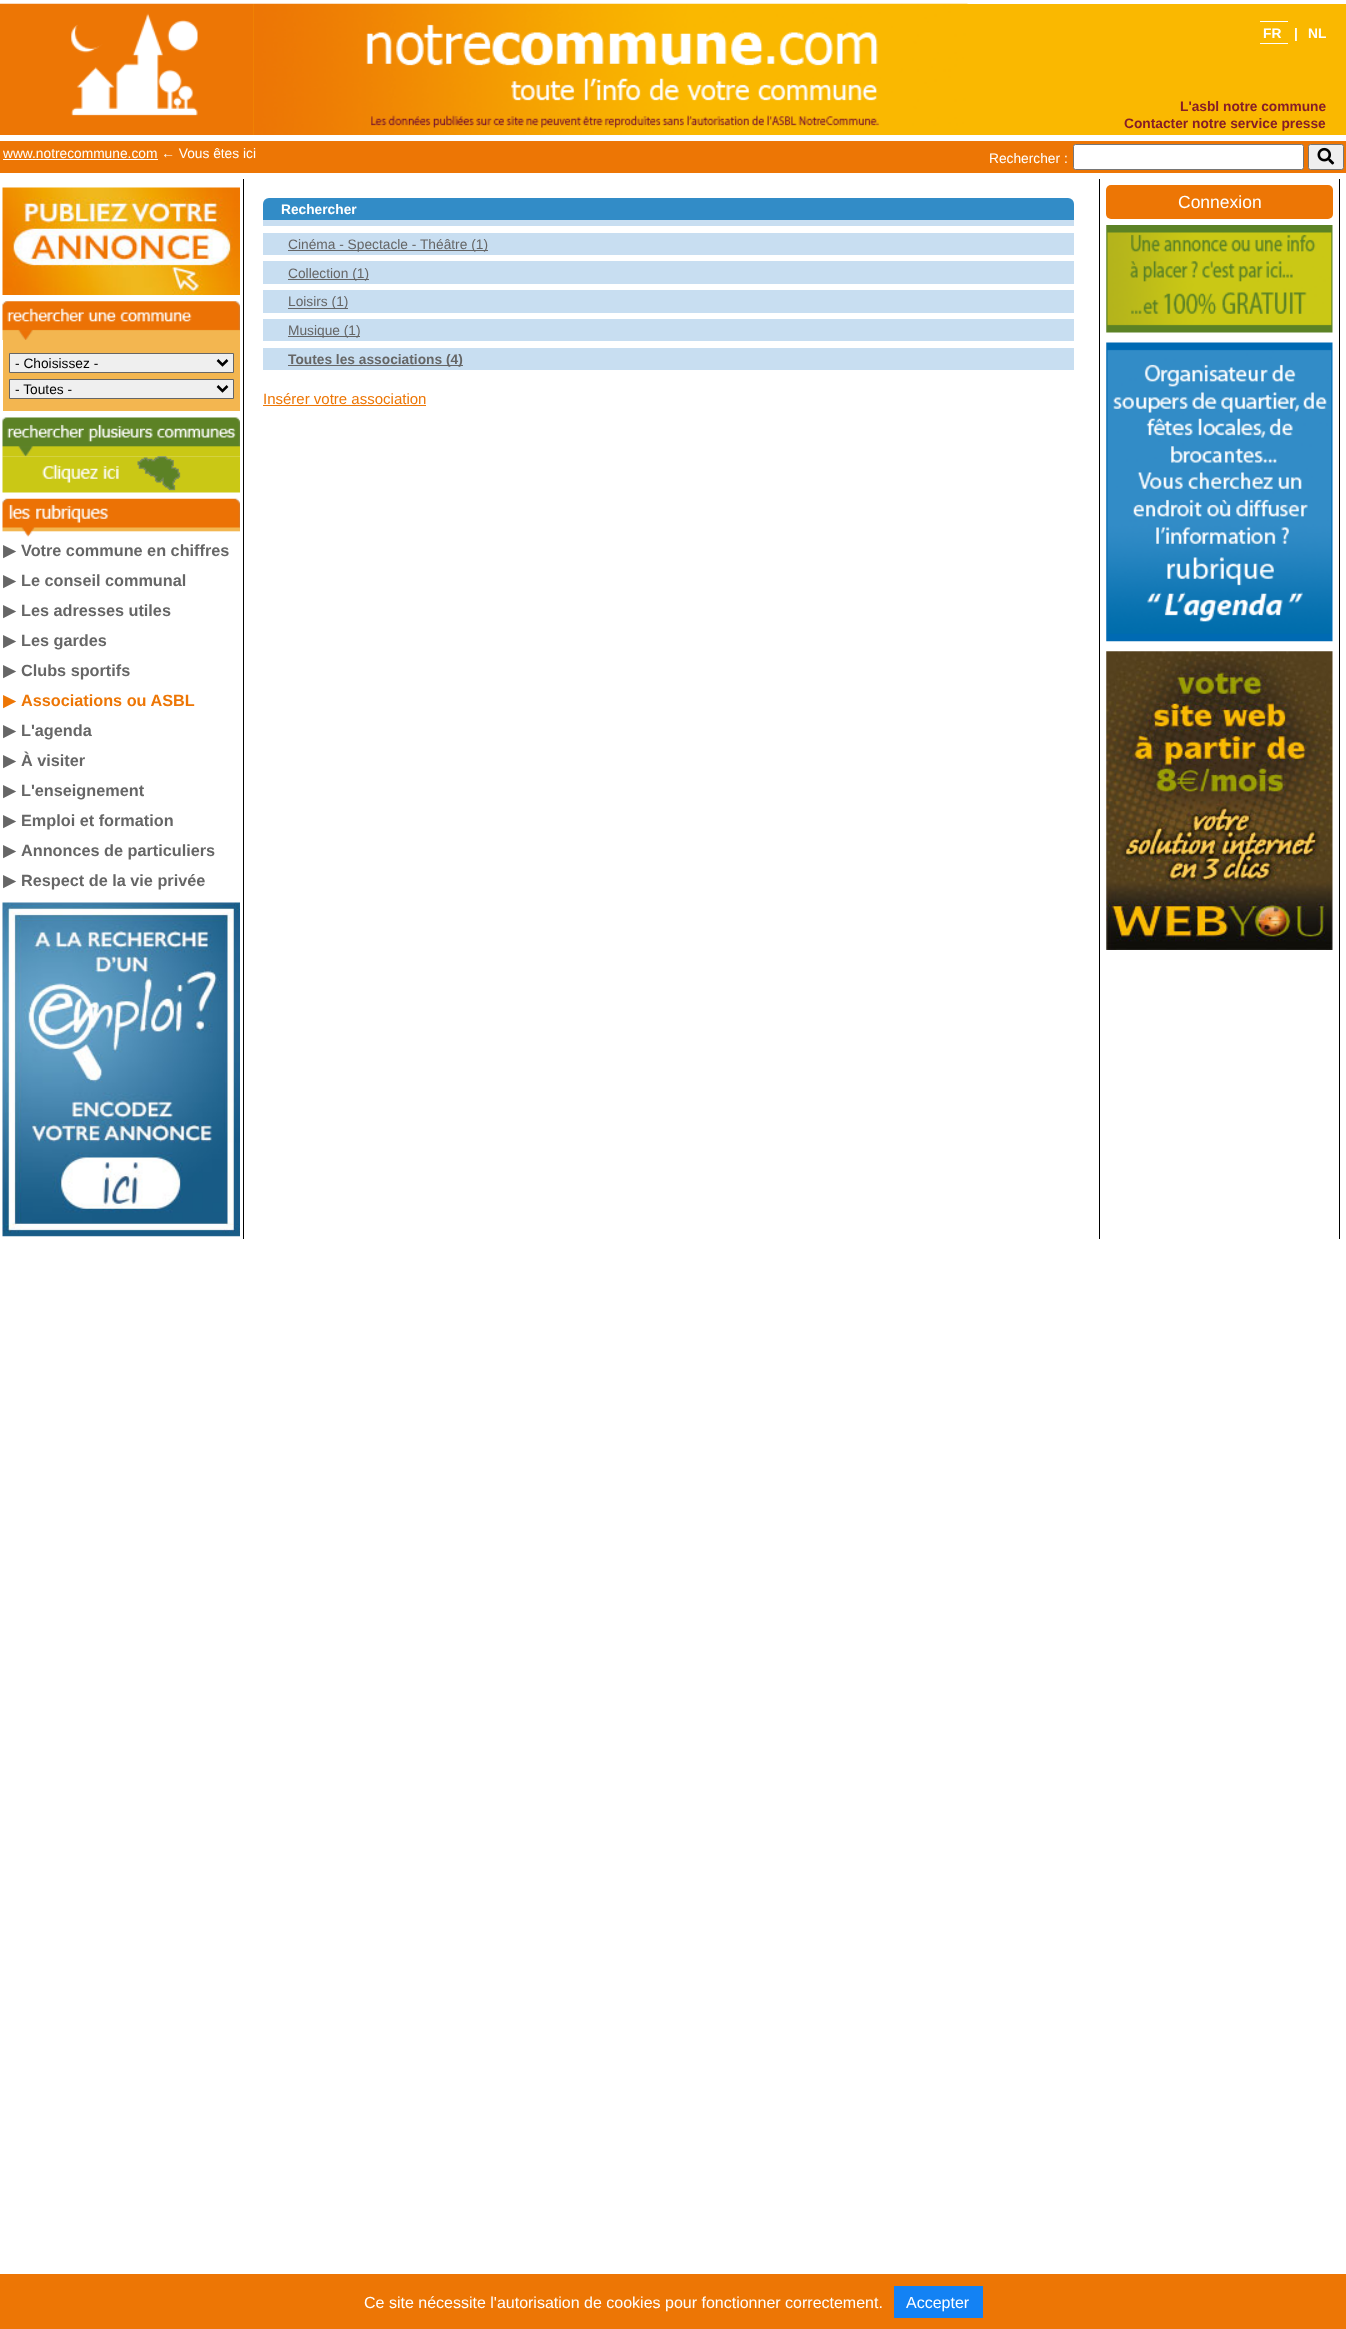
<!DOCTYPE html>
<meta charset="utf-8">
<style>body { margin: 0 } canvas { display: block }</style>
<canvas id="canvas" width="1346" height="2329"></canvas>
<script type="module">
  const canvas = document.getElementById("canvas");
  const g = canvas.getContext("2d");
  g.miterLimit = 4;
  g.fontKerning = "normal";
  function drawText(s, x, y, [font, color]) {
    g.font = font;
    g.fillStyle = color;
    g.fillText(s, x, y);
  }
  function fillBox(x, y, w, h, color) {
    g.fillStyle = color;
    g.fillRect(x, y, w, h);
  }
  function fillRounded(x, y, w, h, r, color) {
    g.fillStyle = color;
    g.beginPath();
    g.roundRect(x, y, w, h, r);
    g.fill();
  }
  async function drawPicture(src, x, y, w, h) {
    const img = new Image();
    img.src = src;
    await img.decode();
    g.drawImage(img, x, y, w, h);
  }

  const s1 = ["bold 13.75px Liberation Sans", "#FFFFFF"];
  const s2 = ["bold 13.75px Liberation Sans", "#851D28"];
  const s3 = ["13.75px Liberation Sans", "#FFFFFF"];
  const s4 = ["17.5px Liberation Sans", "#FFFFFF"];
  const s5 = ["13.75px Liberation Sans", "#666666"];
  const s6 = ["bold 13.75px Liberation Sans", "#666666"];
  const s7 = ["15px Liberation Sans", "#ED7605"];
  const s8 = ["13.75px Liberation Sans", "#000000"];
  const s9 = ["bold 16.25px DejaVu Sans", "#666666"];
  const s10 = ["bold 16.25px Liberation Sans", "#666666"];
  const s11 = ["bold 16.25px DejaVu Sans", "#ED7605"];
  const s12 = ["bold 16.25px Liberation Sans", "#ED7605"];
  const s13 = ["16px Liberation Sans", "#FFFFFF"];

  fillBox(0, 0, 1346, 2329, "#FFFFFF");
  fillBox(253, 4, 1093, 131, "#FAB800");
  await drawPicture("pic1.png", 0, 3, 254, 132);
  await drawPicture("pic2.png", 253, 3, 715, 132);
  drawText("FR", 1263, 38, s1);
  fillBox(1260, 21, 28, 1, "#FFFFFF");
  fillBox(1260, 43, 28, 1, "#FFFFFF");
  drawText("|", 1294, 38, s1);
  drawText("NL", 1308, 38, s1);
  drawText("L'asbl notre commune", 1180, 111, s2);
  drawText("Contacter notre service presse", 1124, 128, s2);
  fillBox(0, 141, 1346, 32, "#ED7605");
  drawText("www.notrecommune.com ← Vous êtes ici", 3, 158, s3);
  fillBox(3, 159, 155, 1, "#FFFFFF");
  drawText("Rechercher :", 989, 163, s3);
  g.beginPath();
  g.roundRect(1073.5, 144.5, 230, 25, 2);
  g.fill();
  g.strokeStyle = "#767676";
  g.stroke();
  g.fillStyle = "#EFEFEF";
  g.beginPath();
  g.roundRect(1308.5, 144.5, 35, 25, 2);
  g.fill();
  g.stroke();
  await drawPicture("pic3.png", 1317, 147, 18, 18);
  fillBox(1339, 179, 1, 1060, "#000000");
  fillBox(1099, 179, 1, 1060, "#000000");
  fillRounded(1106, 185, 227, 34, 5, "#ED7605");
  drawText("Connexion", 1178, 208, s4);
  await drawPicture("pic4.png", 1106, 225, 227, 108);
  await drawPicture("pic5.png", 1106, 342, 227, 300);
  await drawPicture("pic6.png", 1106, 651, 227, 299);
  g.fillStyle = "#328CC7";
  g.beginPath();
  g.roundRect(263, 198, 811, 28, [6, 6, 0, 0]);
  g.fill();
  fillBox(263, 220, 811, 6, "#C8DEF1");
  drawText("Rechercher", 281, 214, s1);
  fillBox(263, 233, 811, 22, "#C8DEF1");
  fillBox(288, 250, 200, 1, "#666666");
  drawText("Cinéma - Spectacle - Théâtre (1)", 288, 249, s5);
  fillBox(263, 261, 811, 23, "#C8DEF1");
  fillBox(288, 279, 81, 1, "#666666");
  drawText("Collection (1)", 288, 278, s5);
  fillBox(263, 290, 811, 23, "#C8DEF1");
  fillBox(288, 308, 60, 1, "#666666");
  drawText("Loisirs (1)", 288, 306, s5);
  fillBox(263, 319, 811, 22, "#C8DEF1");
  fillBox(288, 336, 72, 1, "#666666");
  drawText("Musique (1)", 288, 335, s5);
  fillBox(263, 348, 811, 22, "#C8DEF1");
  fillBox(288, 365, 175, 1, "#666666");
  drawText("Toutes les associations (4)", 288, 364, s6);
  drawText("Insérer votre association", 263, 404, s7);
  fillBox(263, 405, 163, 1, "#ED7605");
  fillBox(243, 179, 1, 1060, "#000000");
  await drawPicture("pic7.png", 2, 187, 238, 108);
  await drawPicture("pic8.png", 2, 301, 238, 39);
  fillBox(3, 340, 237, 71, "#F3B650");
  g.fillStyle = "#EFEFEF";
  g.beginPath();
  g.rect(9.5, 353.5, 224, 19);
  g.fill();
  g.strokeStyle = "#666666";
  g.stroke();
  g.beginPath();
  g.moveTo(217.5, 360);
  g.lineTo(222.5, 365);
  g.lineTo(227.5, 360);
  g.strokeStyle = "#000000";
  g.lineWidth = 2.5;
  g.stroke();
  drawText("- Choisissez -", 15, 368, s8);
  g.fillStyle = "#EFEFEF";
  g.beginPath();
  g.rect(9.5, 379.5, 224, 19);
  g.fill();
  g.strokeStyle = "#666666";
  g.lineWidth = 1;
  g.stroke();
  g.beginPath();
  g.moveTo(217.5, 386);
  g.lineTo(222.5, 391);
  g.lineTo(227.5, 386);
  g.strokeStyle = "#000000";
  g.lineWidth = 2.5;
  g.stroke();
  drawText("- Toutes -", 15, 394, s8);
  await drawPicture("pic9.png", 2, 417, 238, 40);
  await drawPicture("pic10.png", 2, 456, 238, 37);
  await drawPicture("pic11.png", 2, 498, 238, 39);
  drawText("▶", 3, 556, s9);
  drawText("Votre commune en chiffres", 21, 556, s10);
  drawText("▶", 3, 586, s9);
  drawText("Le conseil communal", 21, 586, s10);
  drawText("▶", 3, 616, s9);
  drawText("Les adresses utiles", 21, 616, s10);
  drawText("▶", 3, 646, s9);
  drawText("Les gardes", 21, 646, s10);
  drawText("▶", 3, 676, s9);
  drawText("Clubs sportifs", 21, 676, s10);
  drawText("▶", 3, 706, s11);
  drawText("Associations ou ASBL", 21, 706, s12);
  drawText("▶", 3, 736, s9);
  drawText("L'agenda", 21, 736, s10);
  drawText("▶", 3, 766, s9);
  drawText("À visiter", 21, 766, s10);
  drawText("▶", 3, 796, s9);
  drawText("L'enseignement", 21, 796, s10);
  drawText("▶", 3, 826, s9);
  drawText("Emploi et formation", 21, 826, s10);
  drawText("▶", 3, 856, s9);
  drawText("Annonces de particuliers", 21, 856, s10);
  drawText("▶", 3, 886, s9);
  drawText("Respect de la vie privée", 21, 886, s10);
  await drawPicture("pic12.png", 2, 902, 238, 335);
  fillBox(0, 2274, 1346, 55, "#ED7605");
  drawText("Ce site nécessite l'autorisation de cookies pour fonctionner correctement.", 364, 2308, s13);
  fillBox(894, 2286, 89, 32, "#1382F4");
  drawText("Accepter", 906, 2308, s13);
</script>
